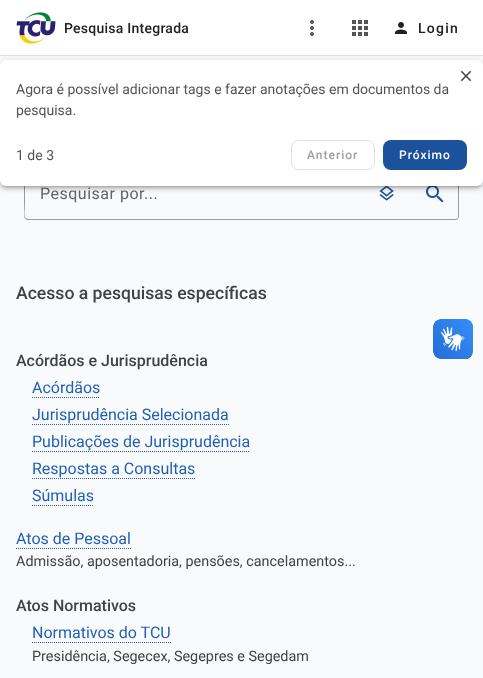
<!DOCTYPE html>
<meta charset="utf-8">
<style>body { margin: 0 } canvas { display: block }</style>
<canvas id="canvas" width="483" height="678"></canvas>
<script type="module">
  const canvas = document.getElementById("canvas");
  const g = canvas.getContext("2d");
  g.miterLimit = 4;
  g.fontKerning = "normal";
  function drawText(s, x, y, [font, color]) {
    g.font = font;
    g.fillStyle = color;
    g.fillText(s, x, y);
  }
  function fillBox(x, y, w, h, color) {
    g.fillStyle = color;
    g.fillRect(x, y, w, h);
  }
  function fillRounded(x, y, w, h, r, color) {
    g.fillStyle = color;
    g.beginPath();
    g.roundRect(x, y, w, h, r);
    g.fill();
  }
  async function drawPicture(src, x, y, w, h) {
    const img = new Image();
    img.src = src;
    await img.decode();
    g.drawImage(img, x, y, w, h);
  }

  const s1 = ["500 14px Roboto", "#212121"];
  const s2 = ["16px Roboto", "#646464"];
  const s3 = ["500 17.6px Roboto", "#424242"];
  const s4 = ["500 16px Roboto", "#424242"];
  const s5 = ["16px Roboto", "#215FB5"];
  const s6 = ["14.4px Roboto", "#424242"];
  const s7 = ["14px Roboto", "#545454"];
  const s8 = ["500 12px Roboto", "#9E9E9E"];
  const s9 = ["500 12px Roboto", "#FFFFFF"];

  fillBox(0, 0, 483, 678, "#F9FAFB");
  fillBox(0, 0, 483, 55, "#FFFFFF");
  fillBox(0, 55, 483, 1, "#E0E0E0");
  await drawPicture("pic1.png", 16, 12, 40, 32);
  g.letterSpacing = "0.25px";
  drawText("Pesquisa Integrada", 64, 33, s1);
  await drawPicture("pic2.png", 310, 20, 4, 16);
  await drawPicture("pic3.png", 352, 20, 16, 16);
  await drawPicture("pic4.png", 395, 22, 12, 12);
  g.letterSpacing = "1.25px";
  drawText("Login", 418, 33, s1);
  g.fillStyle = "#9A9B9C";
  g.beginPath();
  g.moveTo(28, 168);
  g.lineTo(36, 168);
  g.lineTo(36, 220);
  g.lineTo(28, 220);
  g.bezierCurveTo(26, 220, 24, 218, 24, 216);
  g.lineTo(24, 172);
  g.bezierCurveTo(24, 170, 26, 168, 28, 168);
  g.closePath();
  g.moveTo(28, 169);
  g.lineTo(36, 169);
  g.lineTo(36, 219);
  g.bezierCurveTo(21, 219, 25, 219, 25, 201);
  g.lineTo(25, 172);
  g.bezierCurveTo(25, 170, 26, 169, 28, 169);
  g.closePath();
  g.fill("evenodd");
  g.letterSpacing = "0.5px";
  drawText("Pesquisar por...", 40, 199, s2);
  await drawPicture("pic5.png", 379, 186, 15, 15);
  await drawPicture("pic6.png", 426, 186, 18, 17);
  g.fillStyle = "#9A9B9C";
  g.beginPath();
  g.moveTo(36, 168);
  g.lineTo(455, 168);
  g.bezierCurveTo(457, 168, 459, 170, 459, 172);
  g.lineTo(459, 216);
  g.bezierCurveTo(459, 218, 457, 220, 455, 220);
  g.lineTo(36, 220);
  g.closePath();
  g.moveTo(36, 169);
  g.lineTo(455, 169);
  g.bezierCurveTo(457, 169, 458, 170, 458, 172);
  g.lineTo(458, 216);
  g.bezierCurveTo(458, 218, 457, 219, 455, 219);
  g.lineTo(36, 219);
  g.closePath();
  g.fill("evenodd");
  g.letterSpacing = "0px";
  drawText("Acesso a pesquisas específicas", 16, 299, s3);
  drawText("Acórdãos e Jurisprudência", 16, 366, s4);
  drawText("Acórdãos", 32, 393, s5);
  g.beginPath();
  g.moveTo(32, 397.5);
  g.lineTo(100, 397.5);
  g.strokeStyle = "#215FB5";
  g.setLineDash([1, 1]);
  g.stroke();
  drawText("Jurisprudência Selecionada", 32, 420, s5);
  g.beginPath();
  g.moveTo(32, 424.5);
  g.lineTo(229, 424.5);
  g.stroke();
  drawText("Publicações de Jurisprudência", 32, 447, s5);
  g.beginPath();
  g.moveTo(32, 451.5);
  g.lineTo(250, 451.5);
  g.stroke();
  drawText("Respostas a Consultas", 32, 474, s5);
  g.beginPath();
  g.moveTo(32, 478.5);
  g.lineTo(195, 478.5);
  g.stroke();
  drawText("Súmulas", 32, 501, s5);
  g.beginPath();
  g.moveTo(32, 505.5);
  g.lineTo(94, 505.5);
  g.stroke();
  drawText("Atos de Pessoal", 16, 544, s5);
  g.beginPath();
  g.moveTo(16, 548.5);
  g.lineTo(131, 548.5);
  g.stroke();
  drawText("Admissão, aposentadoria, pensões, cancelamentos...", 16, 566, s6);
  drawText("Atos Normativos", 16, 611, s4);
  drawText("Normativos do TCU", 32, 638, s5);
  g.beginPath();
  g.moveTo(32, 642.5);
  g.lineTo(171, 642.5);
  g.stroke();
  drawText("Presidência, Segecex, Segepres e Segedam", 32, 661, s6);
  g.fillStyle = "rgba(0, 0, 0, 0.12)";
  g.filter = "blur(4px)";
  g.beginPath();
  g.roundRect(0, 61, 483, 126, 6);
  g.fill();
  g.filter = "none";
  g.fillStyle = "rgba(0, 0, 0, 0.14)";
  g.filter = "blur(2px)";
  g.beginPath();
  g.roundRect(0, 63, 483, 126, 6);
  g.fill();
  g.filter = "none";
  g.fillStyle = "rgba(0, 0, 0, 0.2)";
  g.filter = "blur(1.5px)";
  g.beginPath();
  g.roundRect(2, 65, 479, 122, 4);
  g.fill();
  g.filter = "none";
  fillRounded(0, 60, 483, 126, 6, "#FFFFFF");
  await drawPicture("pic7.png", 460, 70, 12, 12);
  drawText("Agora é possível adicionar tags e fazer anotações em documentos da", 16, 94, s7);
  drawText("pesquisa.", 16, 115, s7);
  drawText("1 de 3", 16, 160, s7);
  g.beginPath();
  g.roundRect(291.5, 140.5, 83, 29, 7.5);
  g.strokeStyle = "#E0E0E0";
  g.setLineDash([]);
  g.stroke();
  g.letterSpacing = "1px";
  drawText("Anterior", 307, 159, s8);
  fillRounded(383, 140, 84, 30, 8, "#1C519B");
  drawText("Próximo", 399, 159, s9);
  await drawPicture("pic8.png", 433, 319, 40, 40);
  await drawPicture("pic9.png", 433, 319, 40, 40);
</script>
